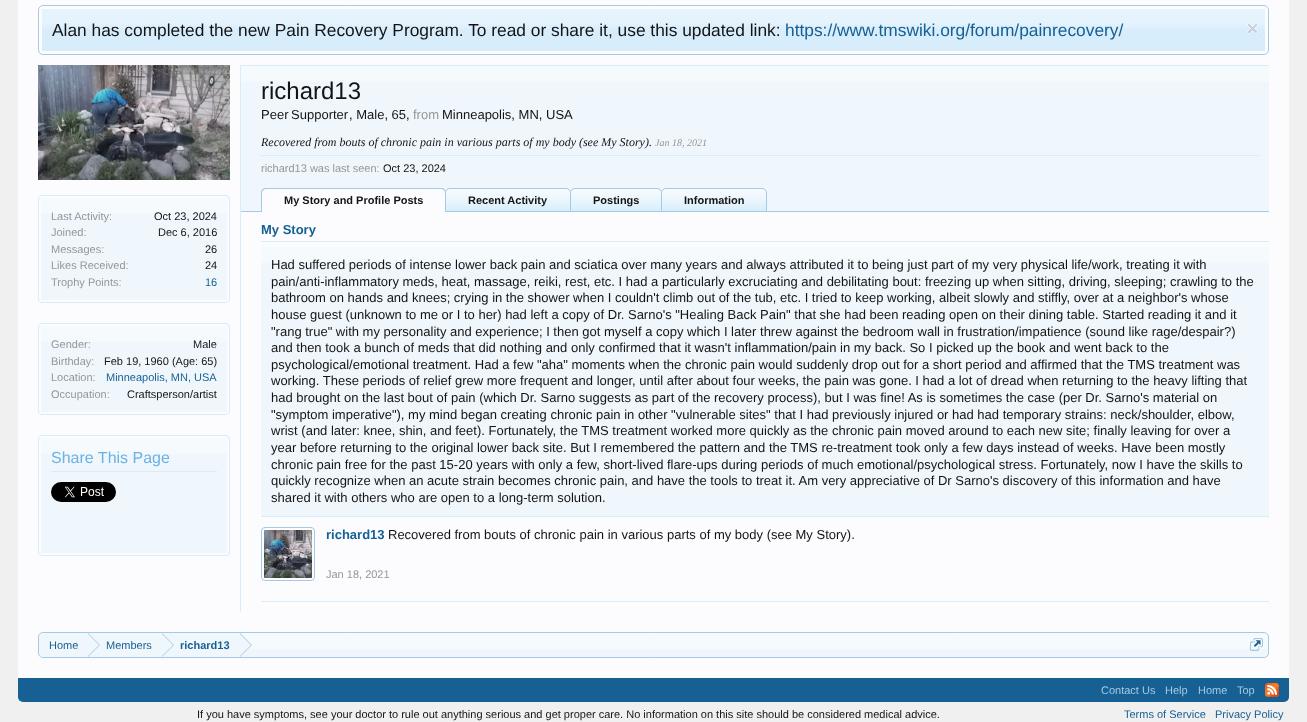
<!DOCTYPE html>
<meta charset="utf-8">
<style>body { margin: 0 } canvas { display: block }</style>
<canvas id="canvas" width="1307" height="722"></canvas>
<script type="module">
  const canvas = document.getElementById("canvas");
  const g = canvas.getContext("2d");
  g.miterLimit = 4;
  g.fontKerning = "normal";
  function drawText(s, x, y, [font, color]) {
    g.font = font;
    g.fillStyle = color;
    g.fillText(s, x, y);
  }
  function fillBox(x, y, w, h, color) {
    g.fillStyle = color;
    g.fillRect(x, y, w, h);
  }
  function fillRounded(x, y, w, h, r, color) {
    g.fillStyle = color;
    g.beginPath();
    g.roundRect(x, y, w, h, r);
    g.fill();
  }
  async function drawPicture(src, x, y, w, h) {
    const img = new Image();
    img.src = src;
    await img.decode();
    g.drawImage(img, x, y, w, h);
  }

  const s1 = ["17.35px Liberation Sans", "#141414"];
  const s2 = ["17.35px Liberation Sans", "#176093"];
  const s3 = ["11px Liberation Sans", "#969696"];
  const s4 = ["11px Liberation Sans", "#141414"];
  const s5 = ["11px Liberation Sans", "#176093"];
  const s6 = ["16px Liberation Sans", "#6CB2E4"];
  const s7 = ["24px Liberation Sans", "#141414"];
  const s8 = ["13px Liberation Sans", "#141414"];
  const s9 = ["13px Liberation Sans", "#969696"];
  const s10 = ["italic 12px Liberation Serif", "#141414"];
  const s11 = ["italic 10px Liberation Serif", "#969696"];
  const s12 = ["bold 11px Liberation Sans", "#141414"];
  const s13 = ["bold 13px Liberation Sans", "#176093"];
  const s14 = ["bold 11px Liberation Sans", "#176093"];
  const s15 = ["11px Liberation Sans", "#A5CAE4"];

  fillBox(0, 0, 1307, 722, "#F0F0F0");
  fillBox(18, 0, 1271, 678, "#FCFCFF");
  g.beginPath();
  g.roundRect(38.5, 5.5, 1230, 49, 4.5);
  g.strokeStyle = "#A5CAE4";
  g.stroke();
  fillBox(42, 9, 1223, 42, "#D7EDFC");
  await drawPicture("pic1.png", 42, 9, 1223, 20);
  drawText("Alan has completed the new Pain Recovery Program. To read or share it, use this updated link:", 52, 36, s1);
  drawText("https://www.tmswiki.org/forum/painrecovery/", 785, 36, s2);
  await drawPicture("pic2.png", 1247, 23, 11, 11);
  await drawPicture("pic3.png", 38, 65, 192, 115);
  g.beginPath();
  g.roundRect(38.5, 195.5, 191, 107, 3.5);
  g.strokeStyle = "#D7EDFC";
  g.stroke();
  fillBox(41, 198, 186, 102, "#F0F7FC");
  await drawPicture("pic4.png", 41, 198, 186, 16);
  drawText("Last Activity:", 51, 220, s3);
  drawText("Oct 23, 2024", 154, 220, s4);
  drawText("Joined:", 51, 236, s3);
  drawText("Dec 6, 2016", 158, 236, s4);
  drawText("Messages:", 51, 253, s3);
  drawText("26", 205, 253, s4);
  drawText("Likes Received:", 51, 269, s3);
  drawText("24", 205, 269, s4);
  drawText("Trophy Points:", 51, 286, s3);
  drawText("16", 205, 286, s5);
  g.beginPath();
  g.roundRect(38.5, 323.5, 191, 91, 3.5);
  g.stroke();
  fillBox(41, 326, 186, 86, "#F0F7FC");
  await drawPicture("pic4.png", 41, 326, 186, 16);
  drawText("Gender:", 51, 348, s3);
  drawText("Male", 193, 348, s4);
  drawText("Birthday:", 51, 365, s3);
  drawText("Feb 19, 1960 (Age: 65)", 104, 365, s4);
  drawText("Location:", 51, 381, s3);
  drawText("Minneapolis, MN, USA", 106, 381, s5);
  drawText("Occupation:", 51, 398, s3);
  drawText("Craftsperson/artist", 127, 398, s4);
  g.beginPath();
  g.roundRect(38.5, 435.5, 191, 120, 3.5);
  g.stroke();
  fillBox(41, 438, 186, 115, "#F0F7FC");
  await drawPicture("pic4.png", 41, 438, 186, 16);
  fillBox(51, 471, 166, 1, "#D7EDFC");
  drawText("Share This Page", 51, 463, s6);
  await drawPicture("pic5.png", 51, 482, 65, 20);
  fillBox(240, 65, 1, 547, "#D7EDFC");
  fillBox(241, 65, 1028, 1, "#D7EDFC");
  fillBox(241, 66, 1028, 145, "#F0F7FC");
  await drawPicture("pic6.png", 241, 66, 1028, 16);
  drawText("richard13", 261, 99, s7);
  g.wordSpacing = "-1px";
  drawText("Peer Supporter", 261, 119, s8);
  g.wordSpacing = "0px";
  drawText(", Male, 65,", 349, 119, s8);
  drawText("from", 413, 119, s9);
  drawText("Minneapolis, MN, USA", 442, 119, s8);
  drawText("Recovered from bouts of chronic pain in various parts of my body (see My Story).", 261, 146, s10);
  drawText("Jan 18, 2021", 655, 146, s11);
  fillBox(261, 155, 998, 1, "#D7EDFC");
  drawText("richard13 was last seen:", 261, 172, s3);
  drawText("Oct 23, 2024", 383, 172, s4);
  fillBox(241, 211, 1028, 1, "#A5CAE4");
  g.fillStyle = "#FCFCFF";
  g.beginPath();
  g.roundRect(261, 188, 185, 24, [5, 5, 0, 0]);
  g.fill();
  g.fillStyle = "#A5CAE4";
  g.beginPath();
  g.moveTo(266, 188);
  g.lineTo(441, 188);
  g.bezierCurveTo(444, 188, 446, 190, 446, 193);
  g.lineTo(446, 212);
  g.lineTo(261, 212);
  g.lineTo(261, 193);
  g.bezierCurveTo(261, 190, 263, 188, 266, 188);
  g.closePath();
  g.moveTo(266, 189);
  g.lineTo(441, 189);
  g.bezierCurveTo(443, 189, 445, 191, 445, 193);
  g.lineTo(445, 212);
  g.lineTo(262, 212);
  g.lineTo(262, 193);
  g.bezierCurveTo(262, 191, 264, 189, 266, 189);
  g.closePath();
  g.fill("evenodd");
  drawText("My Story and Profile Posts", 284, 204, s12);
  g.fillStyle = "#D7EDFC";
  g.beginPath();
  g.roundRect(445, 188, 126, 24, [5, 5, 0, 0]);
  g.fill();
  await drawPicture("pic7.png", 445, 189, 126, 21);
  g.beginPath();
  g.roundRect(445.5, 188.5, 125, 23, [4.5, 4.5, 0, 0]);
  g.strokeStyle = "#A5CAE4";
  g.stroke();
  drawText("Recent Activity", 468, 204, s12);
  g.fillStyle = "#D7EDFC";
  g.beginPath();
  g.roundRect(570, 188, 92, 24, [5, 5, 0, 0]);
  g.fill();
  await drawPicture("pic8.png", 570, 189, 92, 21);
  g.beginPath();
  g.roundRect(570.5, 188.5, 91, 23, [4.5, 4.5, 0, 0]);
  g.stroke();
  drawText("Postings", 593, 204, s12);
  g.fillStyle = "#D7EDFC";
  g.beginPath();
  g.roundRect(661, 188, 106, 24, [5, 5, 0, 0]);
  g.fill();
  await drawPicture("pic9.png", 661, 189, 106, 21);
  g.beginPath();
  g.roundRect(661.5, 188.5, 105, 23, [4.5, 4.5, 0, 0]);
  g.stroke();
  drawText("Information", 684, 204, s12);
  fillBox(261, 241, 1008, 1, "#D7EDFC");
  drawText("My Story", 261, 234, s13);
  fillBox(261, 247, 1008, 269, "#F0F7FC");
  await drawPicture("pic10.png", 261, 247, 1008, 16);
  fillBox(261, 516, 1008, 1, "#D7EDFC");
  drawText("Had suffered periods of intense lower back pain and sciatica over many years and always attributed it to being just part of my very physical life/work, treating it with", 271, 269, s8);
  drawText("pain/anti-inflammatory meds, heat, massage, reiki, rest, etc. I had a particularly excruciating and debilitating bout: freezing up when sitting, driving, sleeping; crawling to the", 271, 286, s8);
  drawText("bathroom on hands and knees; crying in the shower when I couldn't climb out of the tub, etc. I tried to keep working, albeit slowly and stiffly, over at a neighbor's whose", 271, 302, s8);
  drawText("house guest (unknown to me or I to her) had left a copy of Dr. Sarno's \"Healing Back Pain\" that she had been reading open on their dining table. Started reading it and it", 271, 319, s8);
  drawText("\"rang true\" with my personality and experience; I then got myself a copy which I later threw against the bedroom wall in frustration/impatience (sound like rage/despair?)", 271, 336, s8);
  drawText("and then took a bunch of meds that did nothing and only confirmed that it wasn't inflammation/pain in my back. So I picked up the book and went back to the", 271, 352, s8);
  drawText("psychological/emotional treatment. Had a few \"aha\" moments when the chronic pain would suddenly drop out for a short period and affirmed that the TMS treatment was", 271, 369, s8);
  drawText("working. These periods of relief grew more frequent and longer, until after about four weeks, the pain was gone. I had a lot of dread when returning to the heavy lifting that", 271, 385, s8);
  drawText("had brought on the last bout of pain (which Dr. Sarno suggests as part of the recovery process), but I was fine! As is sometimes the case (per Dr. Sarno's material on", 271, 402, s8);
  drawText("\"symptom imperative\"), my mind began creating chronic pain in other \"vulnerable sites\" that I had previously injured or had had temporary strains: neck/shoulder, elbow,", 271, 419, s8);
  drawText("wrist (and later: knee, shin, and feet). Fortunately, the TMS treatment worked more quickly as the chronic pain moved around to each new site; finally leaving for over a", 271, 435, s8);
  drawText("year before returning to the original lower back site. But I remembered the pattern and the TMS re-treatment took only a few days instead of weeks. Have been mostly", 271, 452, s8);
  drawText("chronic pain free for the past 15-20 years with only a few, short-lived flare-ups during periods of much emotional/psychological stress. Fortunately, now I have the skills to", 271, 469, s8);
  drawText("quickly recognize when an acute strain becomes chronic pain, and have the tools to treat it. Am very appreciative of Dr Sarno's discovery of this information and have", 271, 485, s8);
  drawText("shared it with others who are open to a long-term solution.", 271, 502, s8);
  fillBox(261, 601, 1008, 1, "#D7EDFC");
  g.beginPath();
  g.roundRect(261.5, 527.5, 53, 53, 3.5);
  g.stroke();
  await drawPicture("pic11.png", 264, 530, 48, 48);
  drawText("richard13", 326, 539, s13);
  drawText("Recovered from bouts of chronic pain in various parts of my body (see My Story).", 388, 539, s8);
  drawText("Jan 18, 2021", 326, 578, s3);
  fillRounded(38, 632, 1231, 26, 5, "#F0F7FC");
  await drawPicture("pic12.png", 38, 633, 1231, 16);
  g.beginPath();
  g.roundRect(38.5, 632.5, 1230, 25, 4.5);
  g.stroke();
  g.save();
  g.beginPath();
  g.roundRect(39, 633, 1229, 24, 4);
  g.clip();
  g.beginPath();
  g.roundRect(39, 633, 49, 25, [5, 0, 0, 5]);
  g.fill();
  g.restore();
  drawText("Home", 49, 649, s5);
  fillBox(88, 633, 152, 16, "#F0F7FC");
  g.fillStyle = "#A5CAE4";
  g.beginPath();
  g.moveTo(88, 657);
  g.lineTo(88, 633);
  g.lineTo(100, 645);
  g.closePath();
  g.fill();
  g.fillStyle = "#F0F7FC";
  g.beginPath();
  g.moveTo(87, 657);
  g.lineTo(87, 633);
  g.lineTo(99, 645);
  g.closePath();
  g.fill();
  drawText("Members", 106, 649, s5);
  g.fillStyle = "#A5CAE4";
  g.beginPath();
  g.moveTo(162, 657);
  g.lineTo(162, 633);
  g.lineTo(174, 645);
  g.closePath();
  g.fill();
  g.fillStyle = "#F0F7FC";
  g.beginPath();
  g.moveTo(161, 657);
  g.lineTo(161, 633);
  g.lineTo(173, 645);
  g.closePath();
  g.fill();
  drawText("richard13", 180, 649, s14);
  g.fillStyle = "#A5CAE4";
  g.beginPath();
  g.moveTo(240, 657);
  g.lineTo(240, 633);
  g.lineTo(252, 645);
  g.closePath();
  g.fill();
  g.fillStyle = "#F0F7FC";
  g.beginPath();
  g.moveTo(239, 657);
  g.lineTo(239, 633);
  g.lineTo(251, 645);
  g.closePath();
  g.fill();
  await drawPicture("pic13.png", 1250, 638, 13, 13);
  g.fillStyle = "#176093";
  g.beginPath();
  g.roundRect(18, 678, 1271, 24, [0, 0, 5, 5]);
  g.fill();
  drawText("Contact Us", 1101, 694, s15);
  drawText("Help", 1165, 694, s15);
  drawText("Home", 1198, 694, s15);
  drawText("Top", 1237, 694, s15);
  await drawPicture("pic14.png", 1265, 683, 14, 14);
  drawText("If you have symptoms, see your doctor to rule out anything serious and get proper care. No information on this site should be considered medical advice.", 197, 718, s4);
  drawText("Terms of Service", 1124, 718, s5);
  drawText("Privacy Policy", 1215, 718, s5);
</script>
